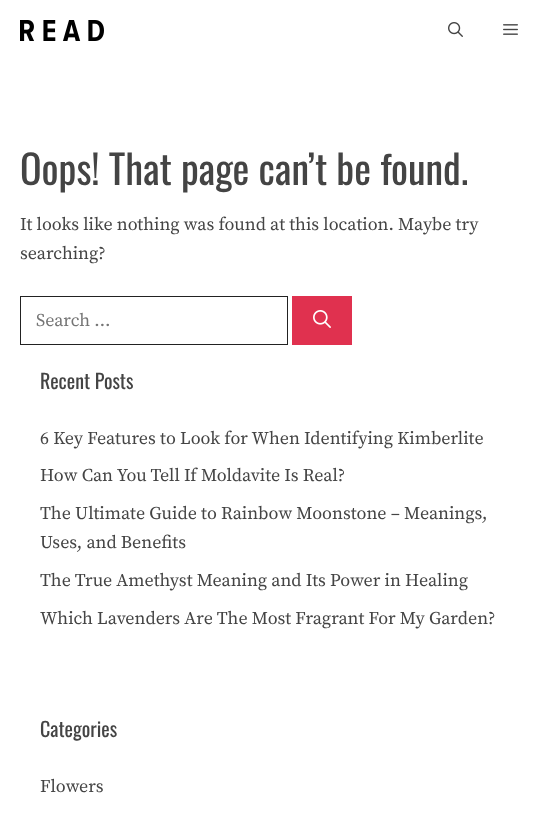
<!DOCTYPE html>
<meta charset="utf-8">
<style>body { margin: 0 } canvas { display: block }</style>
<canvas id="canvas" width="548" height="820"></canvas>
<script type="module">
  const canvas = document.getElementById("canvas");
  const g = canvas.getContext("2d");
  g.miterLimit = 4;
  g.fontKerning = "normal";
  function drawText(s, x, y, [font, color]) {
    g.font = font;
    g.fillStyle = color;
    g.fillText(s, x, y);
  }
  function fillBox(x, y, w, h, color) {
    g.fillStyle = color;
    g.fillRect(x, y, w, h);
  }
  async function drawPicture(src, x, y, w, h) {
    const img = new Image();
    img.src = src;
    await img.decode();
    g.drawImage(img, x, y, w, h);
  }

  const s1 = ["40px Oswald", "#444444"];
  const s2 = ["18px Source Serif Pro", "#444444"];
  const s3 = ["18px Source Serif Pro", "#757575"];
  const s4 = ["20px Oswald", "#444444"];

  fillBox(0, 0, 548, 820, "#FFFFFF");
  await drawPicture("pic1.png", 20, 20, 84, 21);
  await drawPicture("pic2.png", 448, 22, 15, 15);
  await drawPicture("pic3.png", 503, 24, 15, 11);
  drawText("Oops! That page can’t be found.", 20, 185, s1);
  drawText("It looks like nothing was found at this location. Maybe try", 20, 230, s2);
  drawText("searching?", 20, 259, s2);
  g.strokeStyle = "#222222";
  g.strokeRect(20.5, 296.5, 267, 48);
  drawText("Search …", 36, 326, s3);
  fillBox(292, 296, 60, 49, "#E0314F");
  await drawPicture("pic4.png", 313, 310, 18, 18);
  drawText("Recent Posts", 40, 389, s4);
  drawText("6 Key Features to Look for When Identifying Kimberlite", 40, 444, s2);
  drawText("How Can You Tell If Moldavite Is Real?", 40, 481, s2);
  drawText("The Ultimate Guide to Rainbow Moonstone – Meanings,", 40, 519, s2);
  drawText("Uses, and Benefits", 40, 548, s2);
  drawText("The True Amethyst Meaning and Its Power in Healing", 40, 586, s2);
  drawText("Which Lavenders Are The Most Fragrant For My Garden?", 40, 624, s2);
  drawText("Categories", 40, 737, s4);
  drawText("Flowers", 40, 792, s2);
</script>
